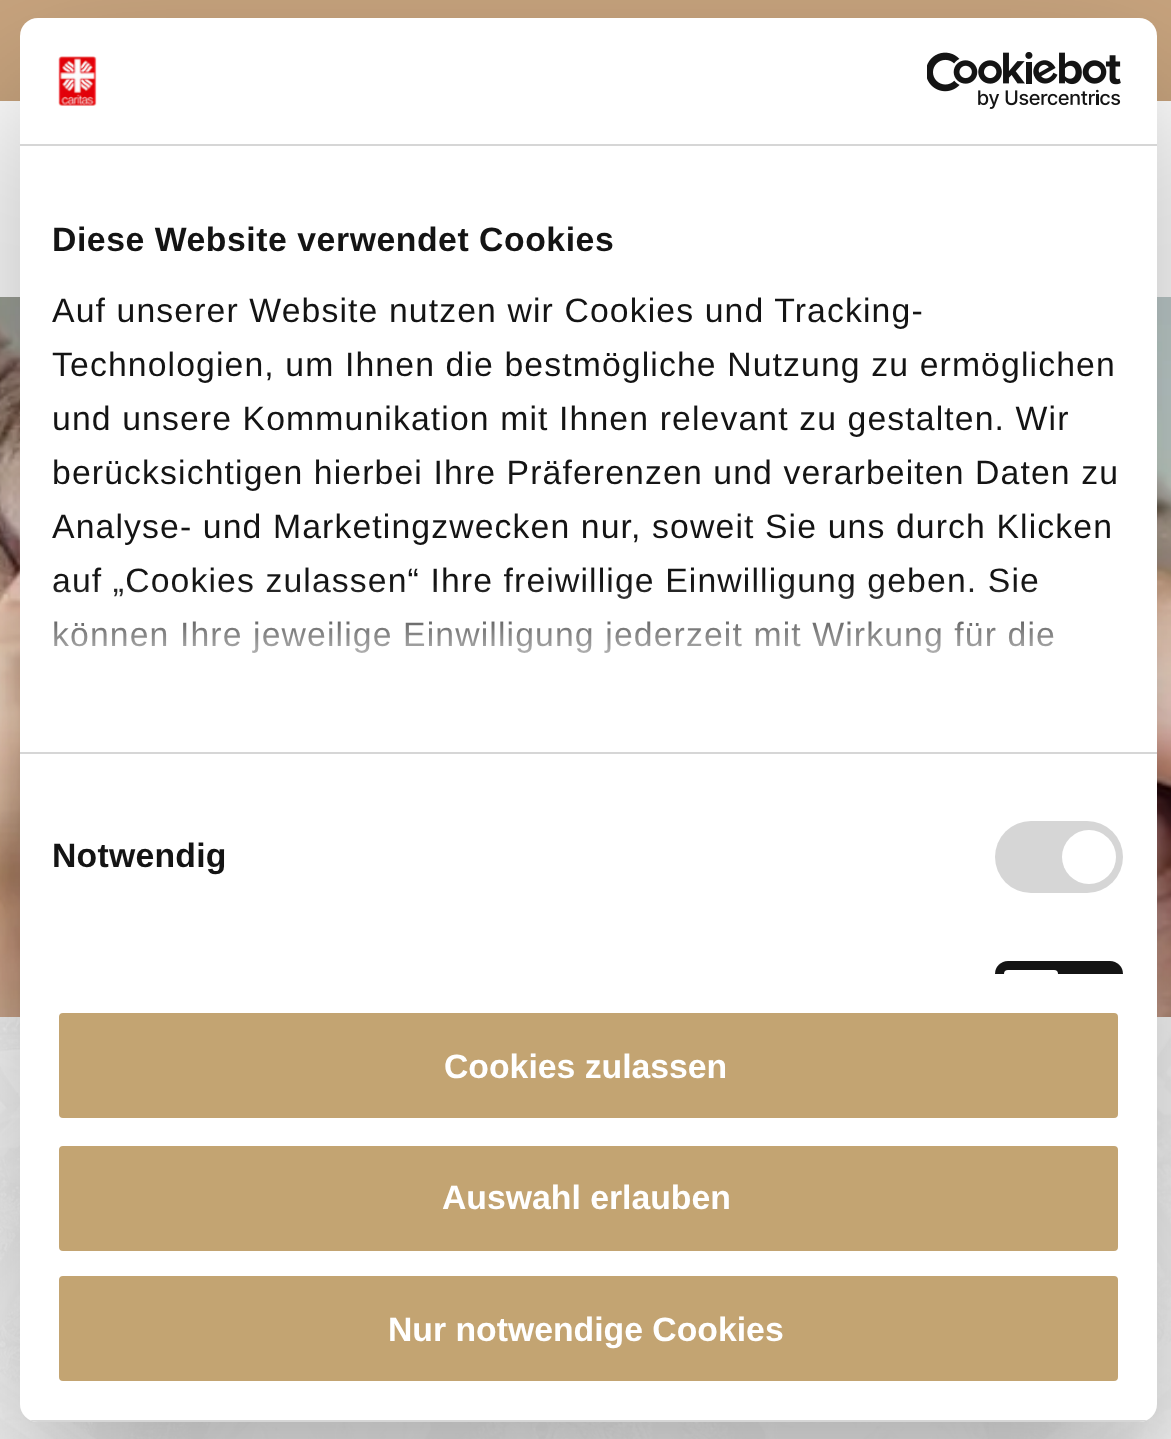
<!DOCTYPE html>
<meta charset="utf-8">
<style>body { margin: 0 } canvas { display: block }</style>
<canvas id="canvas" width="1171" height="1439"></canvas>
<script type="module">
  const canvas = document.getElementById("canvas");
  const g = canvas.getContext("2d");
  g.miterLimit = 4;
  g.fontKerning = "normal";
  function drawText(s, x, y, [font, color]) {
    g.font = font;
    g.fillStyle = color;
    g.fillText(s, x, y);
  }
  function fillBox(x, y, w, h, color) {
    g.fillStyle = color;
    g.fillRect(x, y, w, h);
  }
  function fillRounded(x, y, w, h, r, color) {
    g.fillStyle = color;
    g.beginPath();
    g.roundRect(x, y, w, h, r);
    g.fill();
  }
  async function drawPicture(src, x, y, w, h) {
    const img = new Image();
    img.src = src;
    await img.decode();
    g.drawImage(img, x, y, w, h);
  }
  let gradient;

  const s1 = ["bold 33.75px Liberation Sans", "#141414"];
  const s2 = ["33.75px Liberation Sans", "#141414"];
  const s3 = ["bold 33.75px Liberation Sans", "#FFFFFF"];

  fillBox(0, 0, 1171, 1439, "#FFFFFF");
  await drawPicture("pic1.png", 0, 1017, 1171, 422);
  fillBox(0, 0, 1171, 101, "#C8A47E");
  await drawPicture("pic2.png", 0, 297, 1171, 720);
  fillBox(0, 1017, 1171, 422, "rgba(255, 255, 255, 0.95)");
  g.fillStyle = "rgba(0, 0, 0, 0.3)";
  g.filter = "blur(76.5px)";
  g.beginPath();
  g.roundRect(20, 90, 1137, 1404, 18);
  g.fill();
  g.filter = "none";
  fillRounded(20, 18, 1137, 1404, 18, "#FFFFFF");
  fillBox(20, 144, 1137, 2, "#D6D6D6");
  await drawPicture("pic3.png", 58, 56, 39, 50);
  await drawPicture("pic4.png", 927, 52, 194, 57);
  fillBox(20, 752, 1137, 2, "#D6D6D6");
  g.letterSpacing = "0.55px";
  drawText("Diese Website verwendet Cookies", 52, 251, s1);
  g.letterSpacing = "1.12px";
  drawText("Auf unserer Website nutzen wir Cookies und Tracking-", 52, 322, s2);
  drawText("Technologien, um Ihnen die bestmögliche Nutzung zu ermöglichen", 52, 376, s2);
  drawText("und unsere Kommunikation mit Ihnen relevant zu gestalten. Wir", 52, 430, s2);
  drawText("berücksichtigen hierbei Ihre Präferenzen und verarbeiten Daten zu", 52, 484, s2);
  drawText("Analyse- und Marketingzwecken nur, soweit Sie uns durch Klicken", 52, 538, s2);
  drawText("auf „Cookies zulassen“ Ihre freiwillige Einwilligung geben. Sie", 52, 592, s2);
  drawText("können Ihre jeweilige Einwilligung jederzeit mit Wirkung für die", 52, 646, s2);
  gradient = g.createLinearGradient(573, 752, 573, 583);
  gradient.addColorStop(0, "#FFFFFF");
  gradient.addColorStop(0.5, "rgba(255, 255, 255, 0.8)");
  gradient.addColorStop(1, "rgba(255, 255, 255, 0)");
  g.fillStyle = gradient;
  g.fillRect(53, 585, 1001, 68);
  g.letterSpacing = "0.25px";
  drawText("Notwendig", 52, 867, s1);
  fillRounded(995, 821, 128, 72, 36, "#D6D6D6");
  g.fillStyle = "#FFFFFF";
  g.beginPath();
  g.arc(1089, 857, 27, 0, Math.PI * 2);
  g.fill();
  g.fillStyle = "#141414";
  g.beginPath();
  g.roundRect(995, 961, 128, 13, [36, 36, 0, 0]);
  g.fill();
  g.fillStyle = "#FFFFFF";
  g.beginPath();
  g.roundRect(1004, 970, 54, 4, [27, 27, 0, 0]);
  g.fill();
  g.save();
  g.beginPath();
  g.roundRect(20, 18, 1137, 1404, 18);
  g.clip();
  fillBox(30, 1420, 1117, 2, "#D6D6D6");
  g.restore();
  g.fillStyle = "#C3A472";
  g.beginPath();
  g.roundRect(56.5, 1010.5, 1064, 110, 6.5);
  g.fill();
  g.strokeStyle = "#FFFFFF";
  g.lineWidth = 5;
  g.stroke();
  g.letterSpacing = "0px";
  drawText("Cookies zulassen", 444, 1078, s3);
  g.fillStyle = "#C3A472";
  g.beginPath();
  g.roundRect(56.5, 1143.5, 1064, 110, 6.5);
  g.fill();
  g.stroke();
  drawText("Auswahl erlauben", 442, 1209, s3);
  g.fillStyle = "#C3A472";
  g.beginPath();
  g.roundRect(56.5, 1273.5, 1064, 110, 6.5);
  g.fill();
  g.stroke();
  drawText("Nur notwendige Cookies", 388, 1341, s3);
</script>
